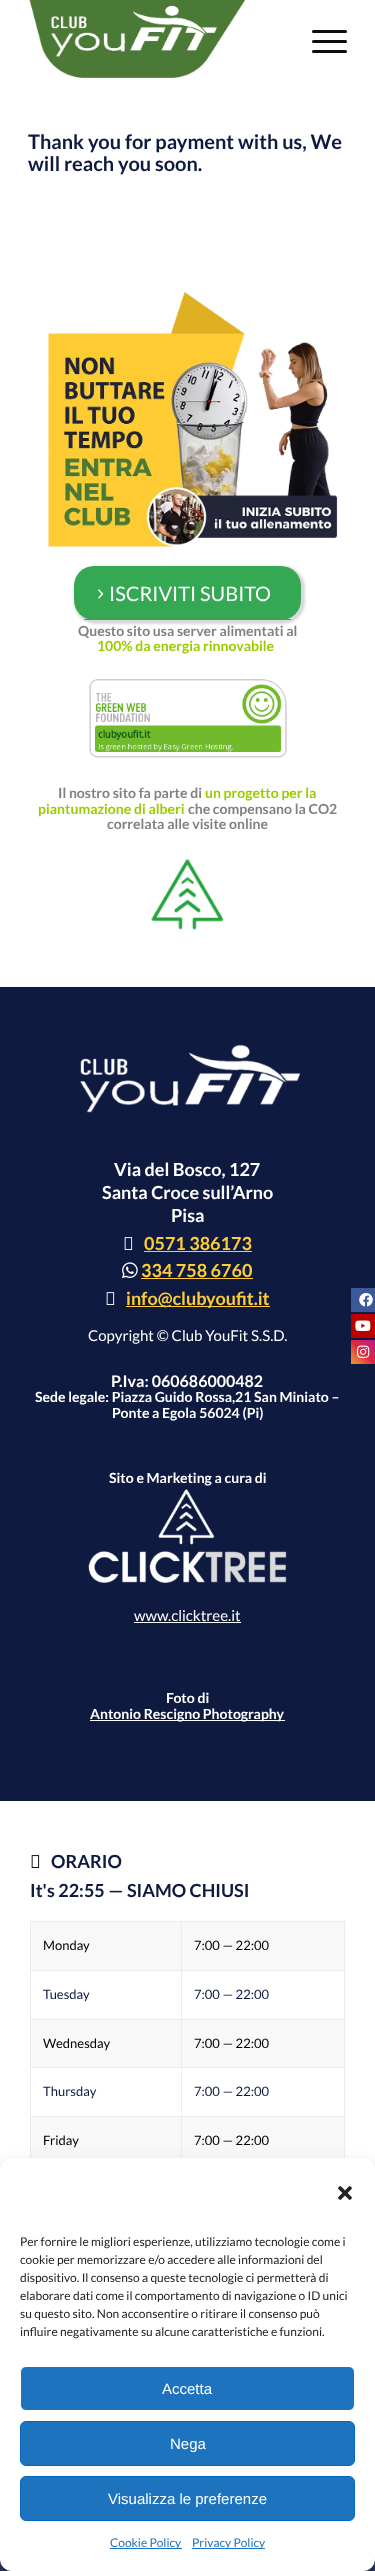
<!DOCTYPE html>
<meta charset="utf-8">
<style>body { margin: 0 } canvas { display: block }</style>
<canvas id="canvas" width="375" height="2571"></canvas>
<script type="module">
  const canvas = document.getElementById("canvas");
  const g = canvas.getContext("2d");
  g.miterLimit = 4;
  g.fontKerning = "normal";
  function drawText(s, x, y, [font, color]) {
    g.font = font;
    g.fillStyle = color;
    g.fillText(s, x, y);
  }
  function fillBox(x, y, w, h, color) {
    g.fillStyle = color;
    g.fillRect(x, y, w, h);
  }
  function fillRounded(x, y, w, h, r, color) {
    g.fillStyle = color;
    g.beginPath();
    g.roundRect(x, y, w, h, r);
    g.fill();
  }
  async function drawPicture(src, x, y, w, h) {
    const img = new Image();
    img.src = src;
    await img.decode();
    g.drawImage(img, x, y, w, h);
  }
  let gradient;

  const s1 = ["bold 20px Lato", "#0F1A41"];
  const s2 = ["20px Lato", "#FFFFFF"];
  const s3 = ["bold 14px Lato", "#808080"];
  const s4 = ["bold 14px Lato", "#99CC00"];
  const s5 = ["bold 18px Lato", "#FFFFFF"];
  const s6 = ["bold 18px Lato", "#FFCC33"];
  const s7 = ["15px Lato", "#FFFFFF"];
  const s8 = ["bold 16px Lato", "#FFFFFF"];
  const s9 = ["bold 14px Lato", "#FFFFFF"];
  const s10 = ["bold 18px Lato", "#0F1A41"];
  const s11 = ["13px Lato", "#000000"];
  const s12 = ["13px Lato", "#0F1A41"];
  const s13 = ["12px Lato", "#222222"];
  const s14 = ["15px Liberation Sans", "#FFFFFF"];
  const s15 = ["12px Lato", "#1E73BE"];

  fillBox(0, 0, 375, 2571, "#2F3C69");
  fillBox(0, 0, 375, 2170, "#FFFFFF");
  await drawPicture("pic1.png", 29, 0, 216, 79);
  fillRounded(312, 40, 35, 3, 1.5, "#0D0D0D");
  fillRounded(312, 30, 35, 3, 1.5, "#0D0D0D");
  fillRounded(312, 50, 35, 3, 1.5, "#0D0D0D");
  drawText("Thank you for payment with us, We", 28, 149, s1);
  drawText("will reach you soon.", 28, 171, s1);
  await drawPicture("pic2.png", 48, 291, 290, 256);
  g.fillStyle = "#D8D8D8";
  g.filter = "blur(1px)";
  g.beginPath();
  g.roundRect(74, 566, 231, 58, 22);
  g.fill();
  g.filter = "none";
  fillRounded(74, 566, 227, 54, 20, "#34A853");
  fillBox(84, 619, 207, 1, "#34A853");
  await drawPicture("pic3.png", 98, 589, 6, 10);
  drawText("ISCRIVITI SUBITO", 109, 601, s2);
  drawText("Questo sito usa server alimentati al", 78, 636, s3);
  drawText("100% da energia rinnovabile", 97, 651, s4);
  await drawPicture("pic4.png", 89, 679, 198, 79);
  drawText("Il nostro sito fa parte di", 58, 798, s3);
  drawText("un progetto per la", 205, 798, s4);
  drawText("piantumazione di alberi", 38, 814, s4);
  drawText("che compensano la CO2", 188, 814, s3);
  drawText("correlata alle visite online", 107, 829, s3);
  await drawPicture("pic5.png", 151, 859, 73, 71);
  fillBox(0, 987, 375, 814, "#0F1A41");
  await drawPicture("pic6.png", 80, 1043, 227, 73);
  drawText("Via del Bosco, 127", 114, 1176, s5);
  drawText("Santa Croce sull’Arno", 102, 1199, s5);
  drawText("Pisa", 171, 1222, s5);
  await drawPicture("pic7.png", 124, 1237, 9, 13);
  drawText("0571 386173", 144, 1250, s6);
  fillBox(144, 1251, 108, 1, "#FFCC33");
  await drawPicture("pic8.png", 122, 1262, 16, 17);
  drawText("334 758 6760", 141, 1277, s6);
  fillBox(141, 1278, 112, 1, "#FFCC33");
  await drawPicture("pic7.png", 106, 1292, 9, 13);
  fillBox(126, 1306, 144, 1, "#FFCC33");
  drawText("info@clubyoufit.it", 126, 1305, s6);
  drawText("Copyright © Club YouFit S.S.D.", 88, 1341, s7);
  drawText("P.Iva: 060686000482", 111, 1387, s8);
  drawText("Sede legale: Piazza Guido Rossa,21 San Miniato –", 35, 1402, s9);
  drawText("Ponte a Egola 56024 (Pi)", 112, 1418, s9);
  drawText("Sito e Marketing a cura di", 109, 1483, s9);
  await drawPicture("pic9.png", 88, 1489, 199, 94);
  drawText("www.clicktree.it", 134, 1621, s7);
  fillBox(134, 1622, 107, 1, "#FFFFFF");
  drawText("Foto di", 166, 1703, s9);
  fillBox(90, 1720, 195, 1, "#FFFFFF");
  drawText("Antonio Rescigno Photography", 90, 1719, s9);
  await drawPicture("pic10.png", 31, 1855, 9, 13);
  drawText("ORARIO", 51, 1868, s10);
  drawText("It's 22:55 — SIAMO CHIUSI", 30, 1897, s10);
  fillBox(31, 1922, 313, 236, "#F8F8F8");
  fillBox(30, 1921, 315, 1, "#EBEBEB");
  fillBox(344, 1970, 1, 196, "#EBEBEB");
  fillBox(344, 1921, 1, 50, "#EBEBEB");
  fillBox(31, 1971, 313, 48, "#FFFFFF");
  fillBox(31, 2068, 313, 48, "#FFFFFF");
  fillBox(181, 2116, 1, 50, "#EBEBEB");
  fillBox(181, 2116, 164, 1, "#EBEBEB");
  fillBox(181, 2067, 1, 50, "#EBEBEB");
  fillBox(181, 2067, 164, 1, "#EBEBEB");
  fillBox(181, 2019, 1, 49, "#EBEBEB");
  fillBox(181, 2019, 164, 1, "#EBEBEB");
  fillBox(181, 1970, 1, 50, "#EBEBEB");
  fillBox(181, 1970, 164, 1, "#EBEBEB");
  fillBox(181, 1921, 1, 50, "#EBEBEB");
  fillBox(30, 2116, 1, 50, "#EBEBEB");
  fillBox(30, 2116, 152, 1, "#EBEBEB");
  fillBox(30, 2067, 1, 50, "#EBEBEB");
  fillBox(30, 2067, 152, 1, "#EBEBEB");
  fillBox(30, 2019, 1, 49, "#EBEBEB");
  fillBox(30, 2019, 152, 1, "#EBEBEB");
  fillBox(30, 1970, 1, 50, "#EBEBEB");
  fillBox(30, 1970, 152, 1, "#EBEBEB");
  fillBox(30, 1921, 1, 50, "#EBEBEB");
  drawText("Monday", 43, 1950, s11);
  drawText("7:00 — 22:00", 194, 1950, s11);
  drawText("Tuesday", 43, 1999, s12);
  drawText("7:00 — 22:00", 194, 1999, s12);
  drawText("Wednesday", 43, 2048, s11);
  drawText("7:00 — 22:00", 194, 2048, s11);
  drawText("Thursday", 43, 2096, s12);
  drawText("7:00 — 22:00", 194, 2096, s12);
  drawText("Friday", 43, 2145, s11);
  drawText("7:00 — 22:00", 194, 2145, s11);
  fillBox(351, 1288, 24, 24, "#3B5998");
  await drawPicture("pic11.png", 359, 1293, 14, 14);
  fillBox(351, 1314, 24, 24, "#BB0000");
  await drawPicture("pic12.png", 355, 1320, 16, 11);
  gradient = g.createLinearGradient(351, 1364, 375, 1340);
  gradient.addColorStop(0, "#F09433");
  gradient.addColorStop(0.25, "#E6683C");
  gradient.addColorStop(0.5, "#DC2743");
  gradient.addColorStop(0.75, "#CC2366");
  gradient.addColorStop(1, "#BC1888");
  g.fillStyle = gradient;
  g.fillRect(351, 1340, 24, 24);
  await drawPicture("pic13.png", 357, 1345, 13, 13);
  g.fillStyle = "rgba(0, 0, 0, 0.23)";
  g.filter = "blur(3px)";
  g.beginPath();
  g.roundRect(0, 2164, 375, 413, 12);
  g.fill();
  g.filter = "none";
  g.fillStyle = "rgba(0, 0, 0, 0.19)";
  g.filter = "blur(10px)";
  g.beginPath();
  g.roundRect(0, 2168, 375, 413, 12);
  g.fill();
  g.filter = "none";
  fillRounded(0, 2158, 375, 413, 12, "#FFFFFF");
  await drawPicture("pic14.png", 338, 2186, 14, 14);
  drawText("Per fornire le migliori esperienze, utilizziamo tecnologie come i", 20, 2246, s13);
  drawText("cookie per memorizzare e/o accedere alle informazioni del", 20, 2264, s13);
  drawText("dispositivo. Il consenso a queste tecnologie ci permetterà di", 20, 2282, s13);
  drawText("elaborare dati come il comportamento di navigazione o ID unici", 20, 2300, s13);
  drawText("su questo sito. Non acconsentire o ritirare il consenso può", 20, 2318, s13);
  drawText("influire negativamente su alcune caratteristiche e funzioni.", 20, 2336, s13);
  g.fillStyle = "#1E73BE";
  g.beginPath();
  g.roundRect(20.5, 2366.5, 334, 44, 5.5);
  g.fill();
  g.strokeStyle = "#FFFFFF";
  g.stroke();
  drawText("Accetta", 162, 2394, s14);
  g.fillStyle = "#1E73BE";
  g.beginPath();
  g.roundRect(20.5, 2421.5, 334, 44, 5.5);
  g.fill();
  g.strokeStyle = "#0066BF";
  g.stroke();
  drawText("Nega", 170, 2449, s14);
  g.fillStyle = "#1E73BE";
  g.beginPath();
  g.roundRect(20.5, 2476.5, 334, 44, 5.5);
  g.fill();
  g.stroke();
  drawText("Visualizza le preferenze", 108, 2504, s14);
  fillBox(110, 2548, 72, 1, "#1E73BE");
  drawText("Cookie Policy", 110, 2547, s15);
  fillBox(192, 2548, 73, 1, "#1E73BE");
  drawText("Privacy Policy", 192, 2547, s15);
</script>
